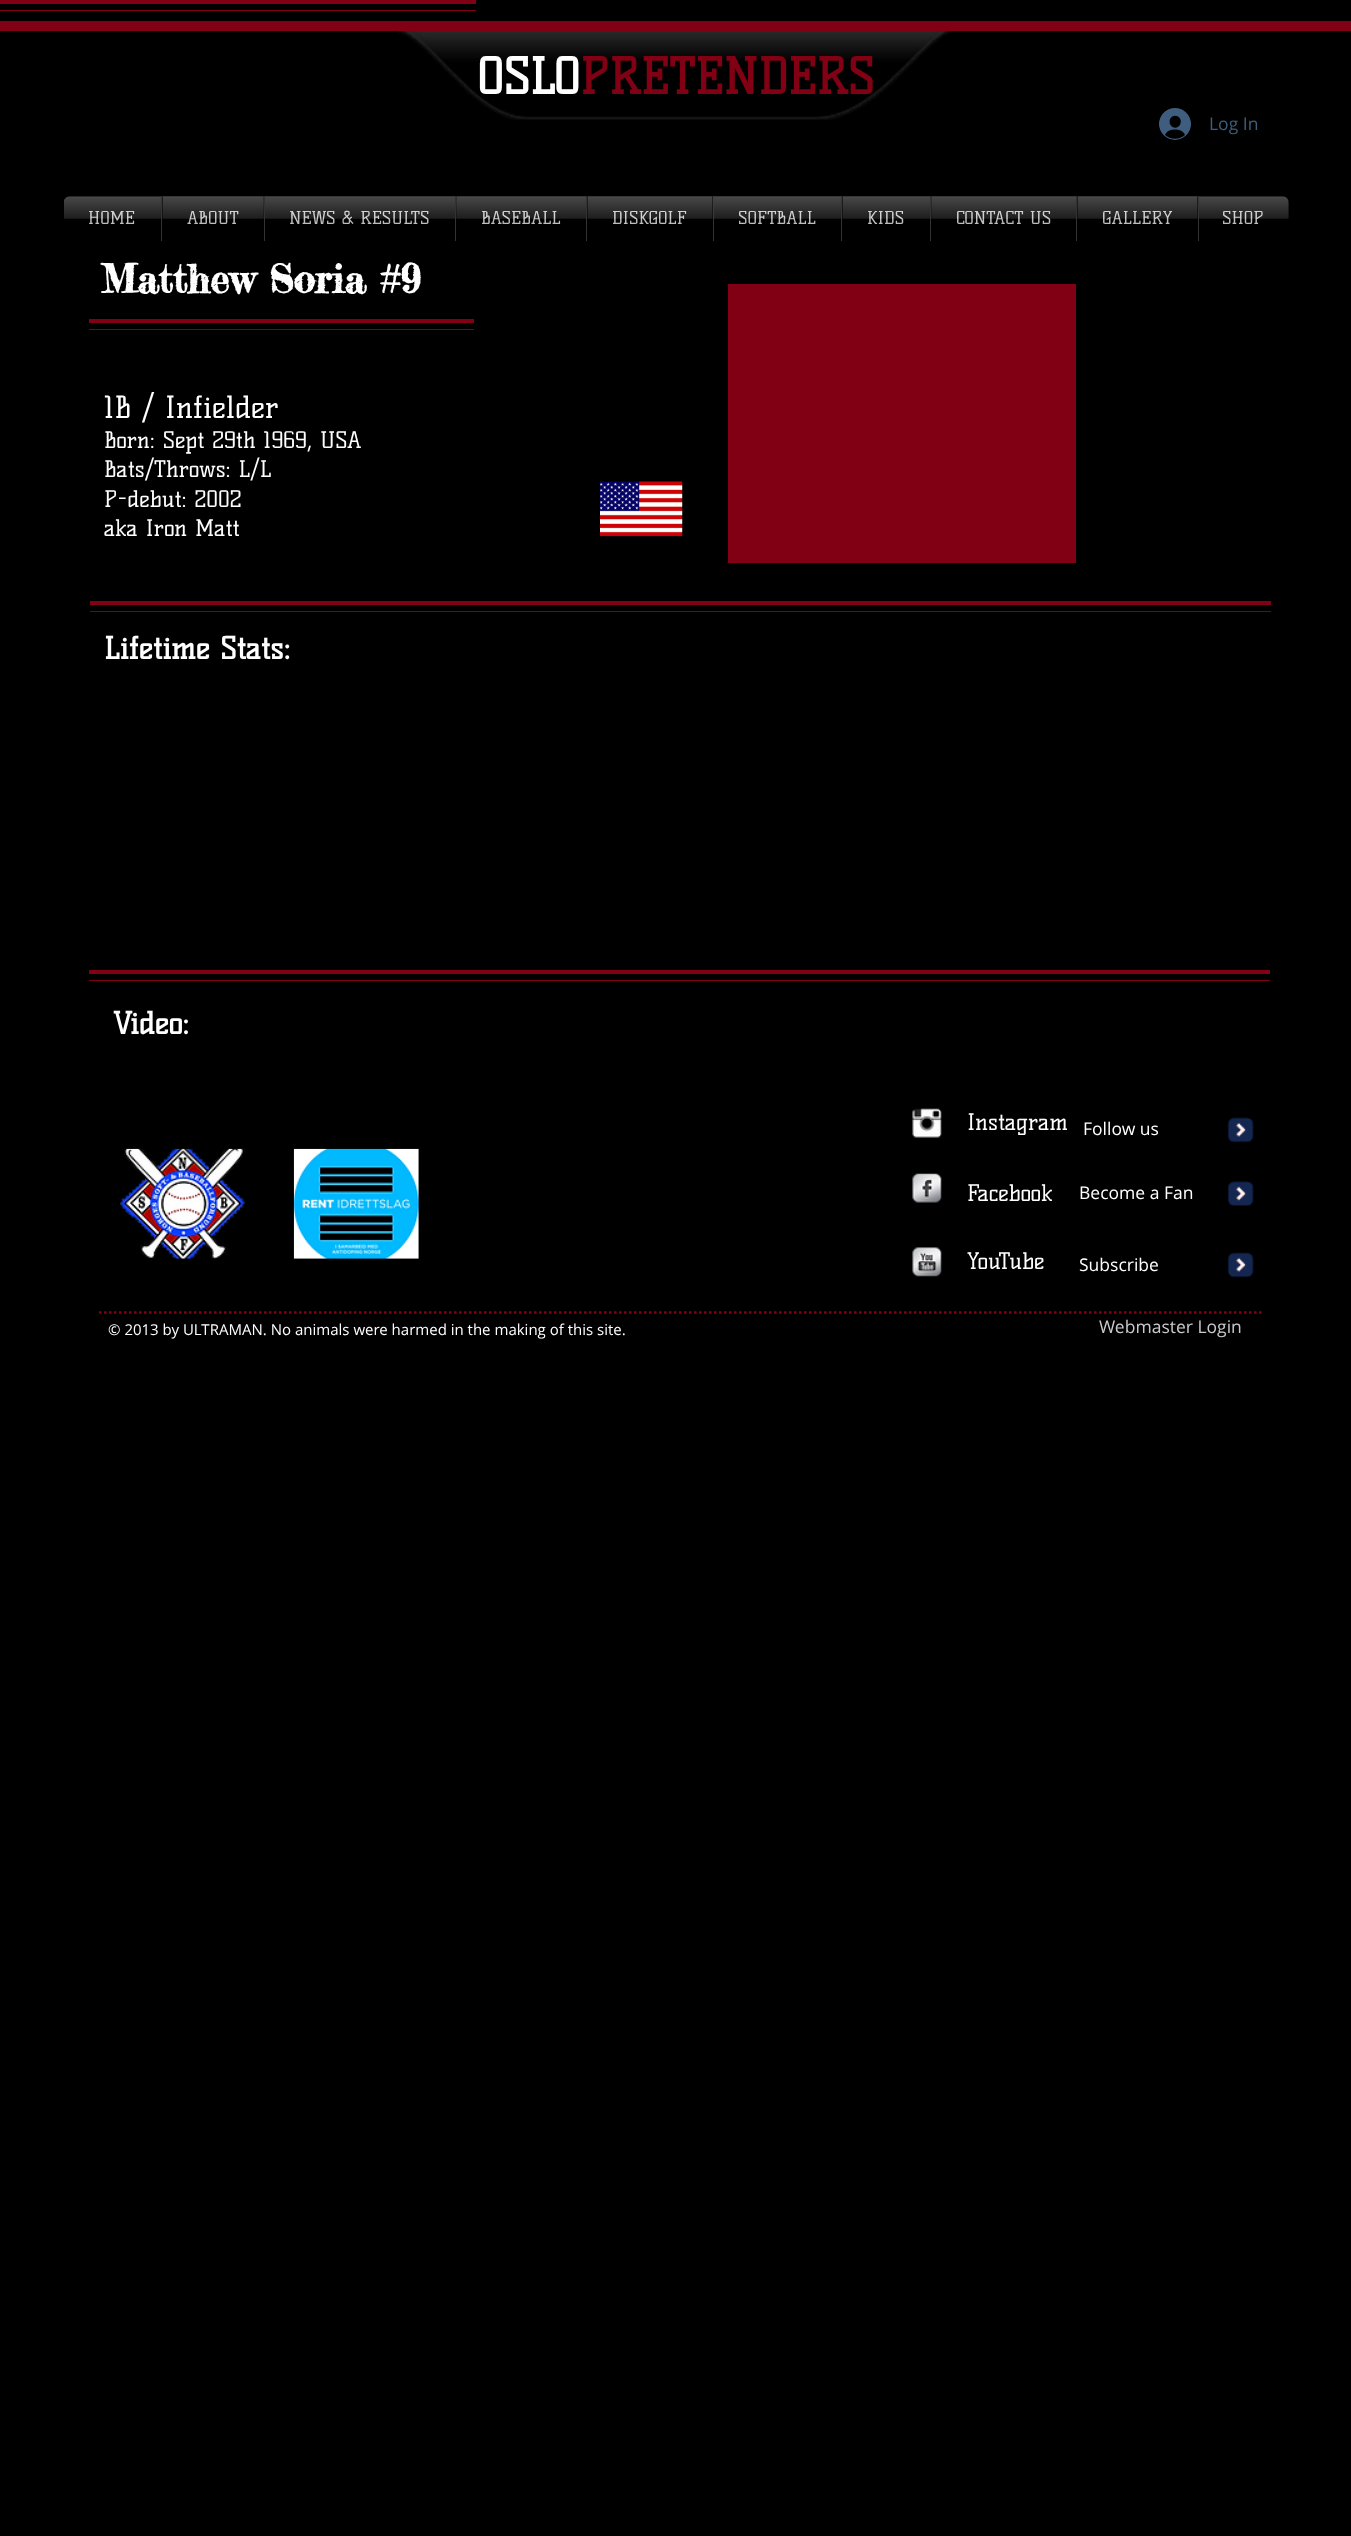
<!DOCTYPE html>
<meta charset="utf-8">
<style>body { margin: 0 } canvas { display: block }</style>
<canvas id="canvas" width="1351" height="2536"></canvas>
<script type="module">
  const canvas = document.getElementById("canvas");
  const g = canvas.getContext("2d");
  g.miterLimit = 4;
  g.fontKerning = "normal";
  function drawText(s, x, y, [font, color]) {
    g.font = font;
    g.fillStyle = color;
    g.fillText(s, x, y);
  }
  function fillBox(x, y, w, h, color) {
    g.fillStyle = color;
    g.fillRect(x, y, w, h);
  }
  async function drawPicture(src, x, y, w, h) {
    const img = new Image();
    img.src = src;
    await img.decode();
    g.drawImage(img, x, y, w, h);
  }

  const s1 = ["bold 48.75px Kelly Slab", "#FFFFFF"];
  const s2 = ["bold 48.75px Kelly Slab", "#820013"];
  const s3 = ["17.5px Open Sans", "#3F5D7E"];
  const s4 = ["17.5px Kelly Slab", "#CACACA"];
  const s5 = ["bold 38.75px Fredericka the Great", "#FFFFFF"];
  const s6 = ["30px Kelly Slab", "#FFFFFF"];
  const s7 = ["22.5px Kelly Slab", "#FFFFFF"];
  const s8 = ["bold 30px Kelly Slab", "#FFFFFF"];
  const s9 = ["17.5px Open Sans", "#FFFFFF"];
  const s10 = ["15px Open Sans", "#FFFFFF"];
  const s11 = ["17.5px Open Sans", "#CACACA"];

  fillBox(0, 0, 1351, 2536, "#000000");
  fillBox(0, 0, 476, 4, "#820013");
  fillBox(0, 10, 476, 1, "#820013");
  fillBox(0, 21, 1351, 10, "#820013");
  await drawPicture("pic1.png", 397, 31, 555, 89);
  drawText("OSLO", 477, 94, s1);
  drawText("PRETENDERS", 580, 94, s2);
  await drawPicture("pic2.png", 1159, 108, 32, 32);
  drawText("Log In", 1209, 130, s3);
  await drawPicture("pic3.png", 64, 196, 1225, 6);
  g.fillStyle = "#000000";
  g.beginPath();
  g.roundRect(64, 196, 97, 45, [6, 0, 0, 0]);
  g.fill();
  drawText("HOME", 88, 224, s4);
  await drawPicture("pic4.png", 64, 196, 97, 28);
  fillBox(162, 196, 102, 6, "#000000");
  fillBox(161, 196, 1, 45, "#333333");
  drawText("ABOUT", 187, 224, s4);
  await drawPicture("pic5.png", 162, 196, 102, 28);
  fillBox(265, 196, 190, 6, "#000000");
  fillBox(264, 196, 1, 45, "#333333");
  drawText("NEWS & RESULTS", 289, 224, s4);
  await drawPicture("pic6.png", 265, 196, 190, 28);
  fillBox(456, 196, 130, 6, "#000000");
  fillBox(455, 196, 1, 45, "#333333");
  drawText("BASEBALL", 481, 224, s4);
  await drawPicture("pic7.png", 456, 196, 130, 28);
  fillBox(587, 196, 126, 6, "#000000");
  fillBox(586, 196, 1, 45, "#333333");
  drawText("DISKGOLF", 612, 224, s4);
  await drawPicture("pic8.png", 587, 196, 126, 28);
  fillBox(714, 196, 127, 6, "#000000");
  fillBox(713, 196, 1, 45, "#333333");
  drawText("SOFTBALL", 738, 224, s4);
  await drawPicture("pic9.png", 713, 196, 128, 28);
  fillBox(842, 196, 88, 6, "#000000");
  fillBox(841, 196, 1, 45, "#333333");
  drawText("KIDS", 867, 224, s4);
  await drawPicture("pic10.png", 842, 196, 88, 28);
  fillBox(931, 196, 145, 6, "#000000");
  fillBox(930, 196, 1, 45, "#333333");
  drawText("CONTACT US", 956, 224, s4);
  await drawPicture("pic11.png", 931, 196, 145, 28);
  fillBox(1077, 196, 121, 6, "#000000");
  fillBox(1076, 196, 1, 45, "#333333");
  drawText("GALLERY", 1102, 224, s4);
  await drawPicture("pic12.png", 1077, 196, 121, 28);
  g.fillStyle = "#000000";
  g.beginPath();
  g.roundRect(1198, 196, 91, 45, [0, 6, 0, 0]);
  g.fill();
  fillBox(1198, 196, 1, 45, "#333333");
  drawText("SHOP", 1222, 224, s4);
  await drawPicture("pic13.png", 1199, 196, 90, 28);
  drawText("Matthew Soria #9", 101, 293, s5);
  fillBox(89, 319, 385, 4, "#820013");
  fillBox(89, 329, 385, 1, "#820013");
  await drawPicture("pic14.png", 600, 481, 83, 56);
  fillBox(728, 284, 348, 279, "#820013");
  drawText("1B / Infielder", 104, 418, s6);
  drawText("Born: Sept 29th 1969, USA", 104, 448, s7);
  drawText("Bats/Throws: L/L", 104, 477, s7);
  drawText("P-debut: 2002", 104, 507, s7);
  drawText("aka Iron Matt", 104, 536, s7);
  fillBox(90, 601, 1181, 4, "#820013");
  fillBox(90, 611, 1181, 1, "#820013");
  drawText("Lifetime Stats:", 104, 659, s8);
  fillBox(89, 970, 1181, 4, "#820013");
  fillBox(89, 980, 1181, 1, "#820013");
  drawText("Video:", 113, 1034, s8);
  await drawPicture("pic15.png", 912, 1108, 30, 30);
  drawText("Instagram", 967, 1130, s7);
  drawText("Follow us", 1083, 1135, s9);
  await drawPicture("pic16.png", 1227, 1117, 27, 26);
  await drawPicture("pic17.png", 120, 1148, 125, 111);
  await drawPicture("pic18.png", 293, 1148, 126, 111);
  await drawPicture("pic19.png", 912, 1173, 30, 30);
  drawText("Facebook", 967, 1201, s7);
  drawText("Become a Fan", 1079, 1199, s9);
  await drawPicture("pic20.png", 1227, 1181, 27, 25);
  await drawPicture("pic21.png", 912, 1247, 30, 30);
  drawText("YouTube", 967, 1269, s7);
  drawText("Subscribe", 1079, 1271, s9);
  await drawPicture("pic16.png", 1227, 1252, 27, 26);
  g.beginPath();
  g.moveTo(99, 1312.5);
  g.lineTo(1262.5, 1312.5);
  g.strokeStyle = "#820013";
  g.lineWidth = 2.5;
  g.setLineDash([2.5, 2.5]);
  g.stroke();
  drawText("© 2013 by ULTRAMAN. No animals were harmed in the making of this site.", 108, 1335, s10);
  drawText("Webmaster Login", 1099, 1333, s11);
</script>
